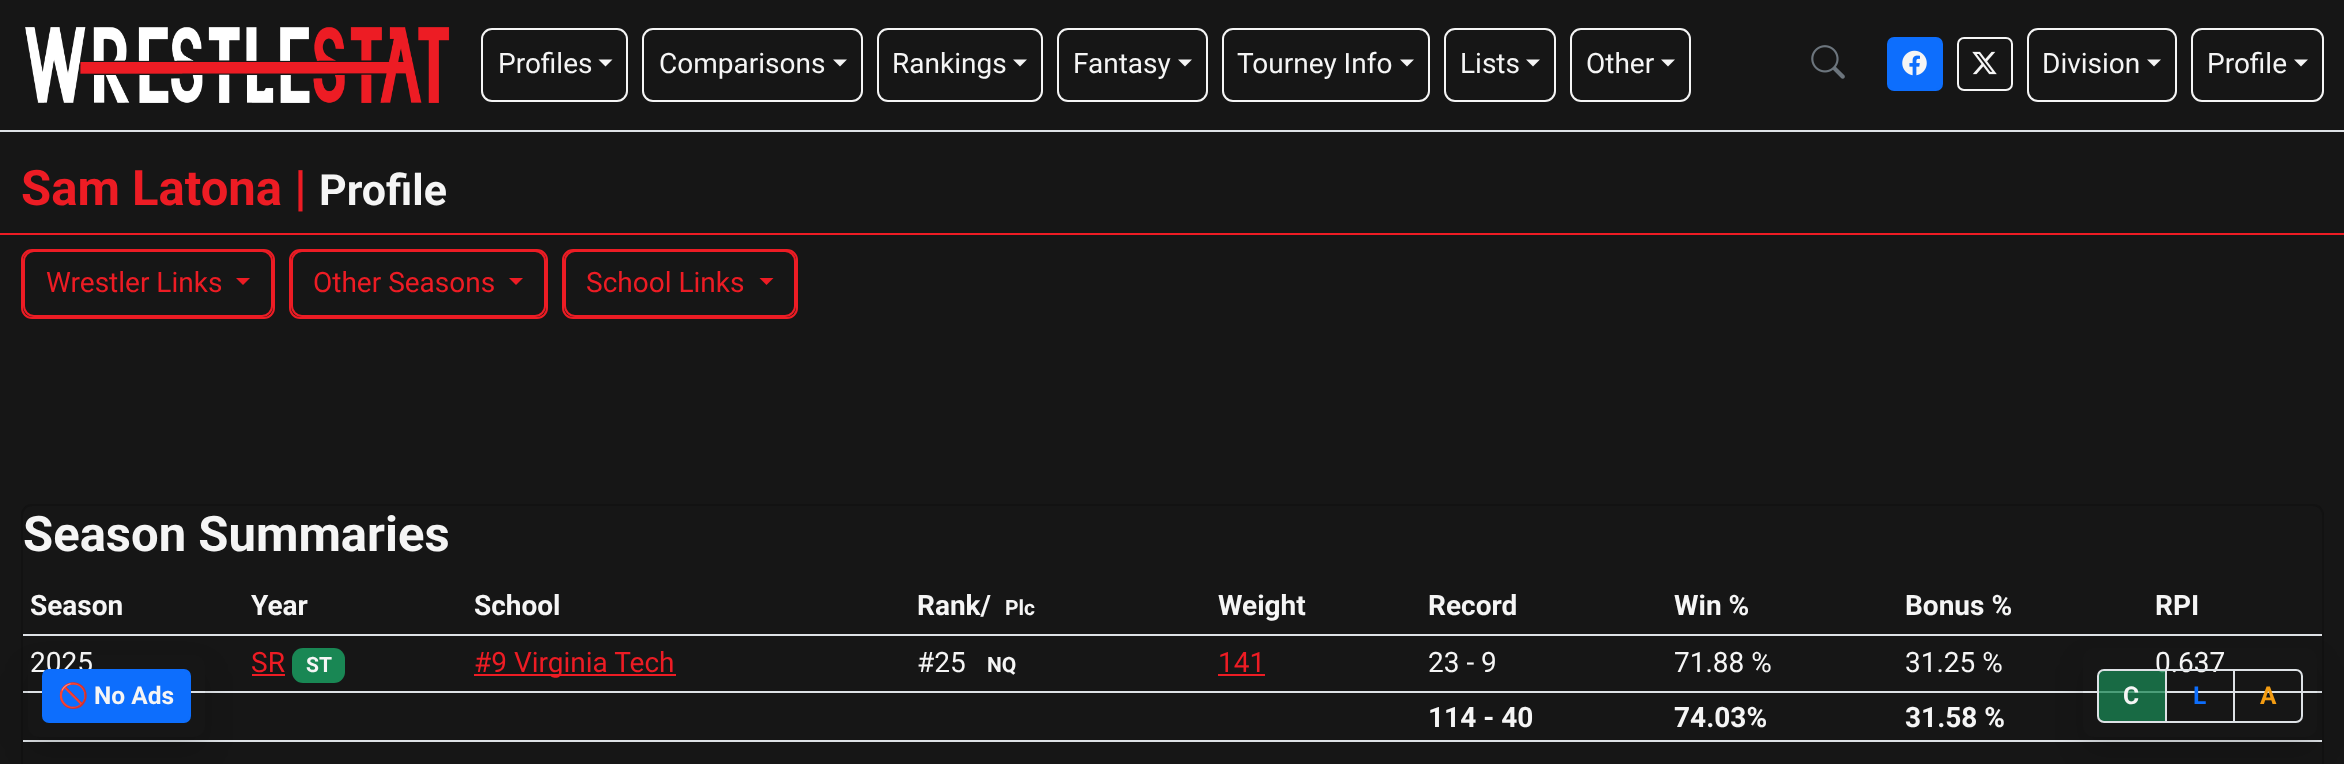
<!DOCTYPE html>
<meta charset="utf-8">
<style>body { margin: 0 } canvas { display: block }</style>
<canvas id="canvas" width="2344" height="764"></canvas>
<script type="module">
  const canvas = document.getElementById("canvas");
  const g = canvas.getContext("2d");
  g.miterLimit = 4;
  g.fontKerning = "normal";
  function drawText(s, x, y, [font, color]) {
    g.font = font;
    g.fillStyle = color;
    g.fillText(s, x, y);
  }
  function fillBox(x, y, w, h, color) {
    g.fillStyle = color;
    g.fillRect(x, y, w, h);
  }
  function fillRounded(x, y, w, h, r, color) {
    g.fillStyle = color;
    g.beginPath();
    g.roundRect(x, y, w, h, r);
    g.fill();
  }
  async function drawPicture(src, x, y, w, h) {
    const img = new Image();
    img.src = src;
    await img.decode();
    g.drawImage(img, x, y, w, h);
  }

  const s1 = ["28px Roboto", "#F5F5F5"];
  const s2 = ["bold 49px Roboto", "#ED1C24"];
  const s3 = ["bold 43px Roboto", "#F5F5F5"];
  const s4 = ["28px Roboto", "#ED1C24"];
  const s5 = ["bold 49px Roboto", "#F5F5F5"];
  const s6 = ["bold 28px Roboto", "#F5F5F5"];
  const s7 = ["bold 21px Roboto", "#F5F5F5"];
  const s8 = ["bold 24.5px Roboto", "#F5F5F5"];
  const s9 = ["bold 24.5px Roboto", "#0D6EFD"];
  const s10 = ["bold 24.5px Roboto", "#F39C12"];
  const s11 = ["bold 24.5px Noto Color Emoji", "#F5F5F5"];

  fillBox(0, 0, 2344, 764, "#161616");
  fillBox(0, 130, 2344, 2, "#DEE2E6");
  await drawPicture("pic1.png", 25, 27, 425, 76);
  g.beginPath();
  g.roundRect(482, 29, 145, 72, 10);
  g.strokeStyle = "#F5F5F5";
  g.lineWidth = 2;
  g.stroke();
  drawText("Profiles", 498, 73, s1);
  g.beginPath();
  g.moveTo(598.5, 59.5);
  g.lineTo(612.5, 59.5);
  g.lineTo(605.5, 66.5);
  g.closePath();
  g.fill();
  g.beginPath();
  g.roundRect(643, 29, 219, 72, 10);
  g.stroke();
  drawText("Comparisons", 659, 73, s1);
  g.beginPath();
  g.moveTo(833, 59.5);
  g.lineTo(847, 59.5);
  g.lineTo(840, 66.5);
  g.closePath();
  g.fill();
  g.beginPath();
  g.roundRect(878, 29, 164, 72, 10);
  g.stroke();
  drawText("Rankings", 892, 73, s1);
  g.beginPath();
  g.moveTo(1013, 59.5);
  g.lineTo(1027, 59.5);
  g.lineTo(1020, 66.5);
  g.closePath();
  g.fill();
  g.beginPath();
  g.roundRect(1058, 29, 149, 72, 10);
  g.stroke();
  drawText("Fantasy", 1073, 73, s1);
  g.beginPath();
  g.moveTo(1178, 59.5);
  g.lineTo(1192, 59.5);
  g.lineTo(1185, 66.5);
  g.closePath();
  g.fill();
  g.beginPath();
  g.roundRect(1223, 29, 206, 72, 10);
  g.stroke();
  drawText("Tourney Info", 1237, 73, s1);
  g.beginPath();
  g.moveTo(1400, 59.5);
  g.lineTo(1414, 59.5);
  g.lineTo(1407, 66.5);
  g.closePath();
  g.fill();
  g.beginPath();
  g.roundRect(1445, 29, 110, 72, 10);
  g.stroke();
  drawText("Lists", 1460, 73, s1);
  g.beginPath();
  g.moveTo(1526, 59.5);
  g.lineTo(1540, 59.5);
  g.lineTo(1533, 66.5);
  g.closePath();
  g.fill();
  g.beginPath();
  g.roundRect(1571, 29, 119, 72, 10);
  g.stroke();
  drawText("Other", 1586, 73, s1);
  g.beginPath();
  g.moveTo(1661, 59.5);
  g.lineTo(1675, 59.5);
  g.lineTo(1668, 66.5);
  g.closePath();
  g.fill();
  await drawPicture("pic2.png", 1811, 45, 34, 34);
  g.fillStyle = "#0D6EFD";
  g.beginPath();
  g.roundRect(1888, 38, 54, 52, 6);
  g.fill();
  g.strokeStyle = "#0D6EFD";
  g.stroke();
  await drawPicture("pic3.png", 1902, 50, 25, 26);
  g.beginPath();
  g.roundRect(1958, 38, 54, 52, 6);
  g.strokeStyle = "#F5F5F5";
  g.stroke();
  await drawPicture("pic4.png", 1972, 51, 25, 24);
  g.beginPath();
  g.roundRect(2028, 29, 148, 72, 10);
  g.stroke();
  drawText("Division", 2042, 73, s1);
  g.beginPath();
  g.moveTo(2147, 59.5);
  g.lineTo(2161, 59.5);
  g.lineTo(2154, 66.5);
  g.closePath();
  g.fill();
  g.beginPath();
  g.roundRect(2192, 29, 131, 72, 10);
  g.stroke();
  drawText("Profile", 2207, 73, s1);
  g.beginPath();
  g.moveTo(2294, 59.5);
  g.lineTo(2308, 59.5);
  g.lineTo(2301, 66.5);
  g.closePath();
  g.fill();
  fillBox(0, 233, 2344, 2, "#ED1C24");
  drawText("Sam Latona |", 21, 205, s2);
  drawText("Profile", 319, 205, s3);
  g.beginPath();
  g.roundRect(22, 250, 252, 68, 10);
  g.strokeStyle = "#ED1C24";
  g.stroke();
  g.beginPath();
  g.roundRect(24, 251, 248, 65, 10);
  g.stroke();
  drawText("Wrestler Links", 46, 292, s4);
  g.beginPath();
  g.moveTo(236, 278);
  g.lineTo(250, 278);
  g.lineTo(243, 285);
  g.closePath();
  g.fill();
  g.beginPath();
  g.roundRect(290, 250, 257, 68, 10);
  g.stroke();
  g.beginPath();
  g.roundRect(292, 251, 253, 65, 10);
  g.stroke();
  drawText("Other Seasons", 313, 292, s4);
  g.beginPath();
  g.moveTo(509, 278);
  g.lineTo(523, 278);
  g.lineTo(516, 285);
  g.closePath();
  g.fill();
  g.beginPath();
  g.roundRect(563, 250, 234, 68, 10);
  g.stroke();
  g.beginPath();
  g.roundRect(565, 251, 230, 65, 10);
  g.stroke();
  drawText("School Links", 586, 292, s4);
  g.beginPath();
  g.moveTo(759.5, 278);
  g.lineTo(773.5, 278);
  g.lineTo(766.5, 285);
  g.closePath();
  g.fill();
  g.beginPath();
  g.roundRect(22, 505, 2301, 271, 10);
  g.strokeStyle = "#121212";
  g.stroke();
  drawText("Season Summaries", 23, 551, s5);
  drawText("Season", 30, 615, s6);
  drawText("Year", 251, 615, s6);
  drawText("School", 474, 615, s6);
  drawText("Rank/", 917, 615, s6);
  drawText("Plc", 1005, 615, s7);
  drawText("Weight", 1218, 615, s6);
  drawText("Record", 1428, 615, s6);
  drawText("Win %", 1674, 615, s6);
  drawText("Bonus %", 1905, 615, s6);
  fillBox(23, 634, 2299, 2, "#DEE2E6");
  drawText("RPI", 2155, 615, s6);
  drawText("2025", 30, 672, s1);
  drawText("SR", 251, 672, s4);
  fillBox(252, 674, 33, 2, "#ED1C24");
  fillRounded(292, 648, 53, 35, 11, "#198754");
  drawText("ST", 306, 672, s7);
  fillBox(474, 674, 202, 2, "#ED1C24");
  drawText("#9 Virginia Tech", 474, 672, s4);
  drawText("#25", 917, 672, s1);
  drawText("NQ", 987, 672, s7);
  drawText("141", 1218, 672, s4);
  fillBox(1218, 674, 47, 2, "#ED1C24");
  drawText("23 - 9", 1428, 672, s1);
  drawText("71.88 %", 1674, 672, s1);
  drawText("31.25 %", 1905, 672, s1);
  fillBox(23, 691, 2299, 2, "#DEE2E6");
  drawText("0.637", 2155, 672, s1);
  drawText("114 - 40", 1428, 727, s6);
  drawText("74.03%", 1674, 727, s6);
  drawText("31.58 %", 1905, 727, s6);
  fillBox(23, 740, 2299, 2, "#DEE2E6");
  g.save();
  g.beginPath();
  g.moveTo(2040, 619);
  g.lineTo(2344, 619);
  g.lineTo(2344, 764);
  g.lineTo(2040, 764);
  g.closePath();
  g.moveTo(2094, 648);
  g.lineTo(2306, 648);
  g.bezierCurveTo(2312, 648, 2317, 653, 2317, 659);
  g.lineTo(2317, 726);
  g.bezierCurveTo(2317, 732, 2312, 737, 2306, 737);
  g.lineTo(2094, 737);
  g.bezierCurveTo(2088, 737, 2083, 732, 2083, 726);
  g.lineTo(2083, 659);
  g.bezierCurveTo(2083, 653, 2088, 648, 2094, 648);
  g.closePath();
  g.clip("evenodd");
  g.fillStyle = "rgba(0, 0, 0, 0.15)";
  g.filter = "blur(14px)";
  g.beginPath();
  g.roundRect(2083, 662, 234, 89, 11);
  g.fill();
  g.filter = "none";
  g.restore();
  g.fillStyle = "rgba(25, 135, 84, 0.75)";
  g.beginPath();
  g.roundRect(2098, 670, 68, 52, [6, 0, 0, 6]);
  g.fill();
  g.strokeStyle = "#DEE2E6";
  g.stroke();
  drawText("C", 2123, 704, s8);
  g.strokeRect(2166, 670, 68, 52);
  drawText("L", 2193, 704, s9);
  g.beginPath();
  g.roundRect(2234, 670, 68, 52, [0, 6, 6, 0]);
  g.stroke();
  drawText("A", 2260, 704, s10);
  g.save();
  g.beginPath();
  g.moveTo(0, 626);
  g.lineTo(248, 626);
  g.lineTo(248, 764);
  g.lineTo(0, 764);
  g.closePath();
  g.moveTo(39, 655);
  g.lineTo(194, 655);
  g.bezierCurveTo(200, 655, 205, 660, 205, 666);
  g.lineTo(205, 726);
  g.bezierCurveTo(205, 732, 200, 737, 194, 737);
  g.lineTo(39, 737);
  g.bezierCurveTo(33, 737, 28, 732, 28, 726);
  g.lineTo(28, 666);
  g.bezierCurveTo(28, 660, 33, 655, 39, 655);
  g.closePath();
  g.clip("evenodd");
  g.fillStyle = "rgba(0, 0, 0, 0.15)";
  g.filter = "blur(14px)";
  g.beginPath();
  g.roundRect(28, 669, 177, 82, 11);
  g.fill();
  g.filter = "none";
  g.restore();
  g.fillStyle = "#0D6EFD";
  g.beginPath();
  g.roundRect(43, 670, 147, 52, 6);
  g.fill();
  g.strokeStyle = "#0D6EFD";
  g.stroke();
  drawText("🚫", 58, 704, s11);
  drawText("No Ads", 94, 704, s8);
</script>
